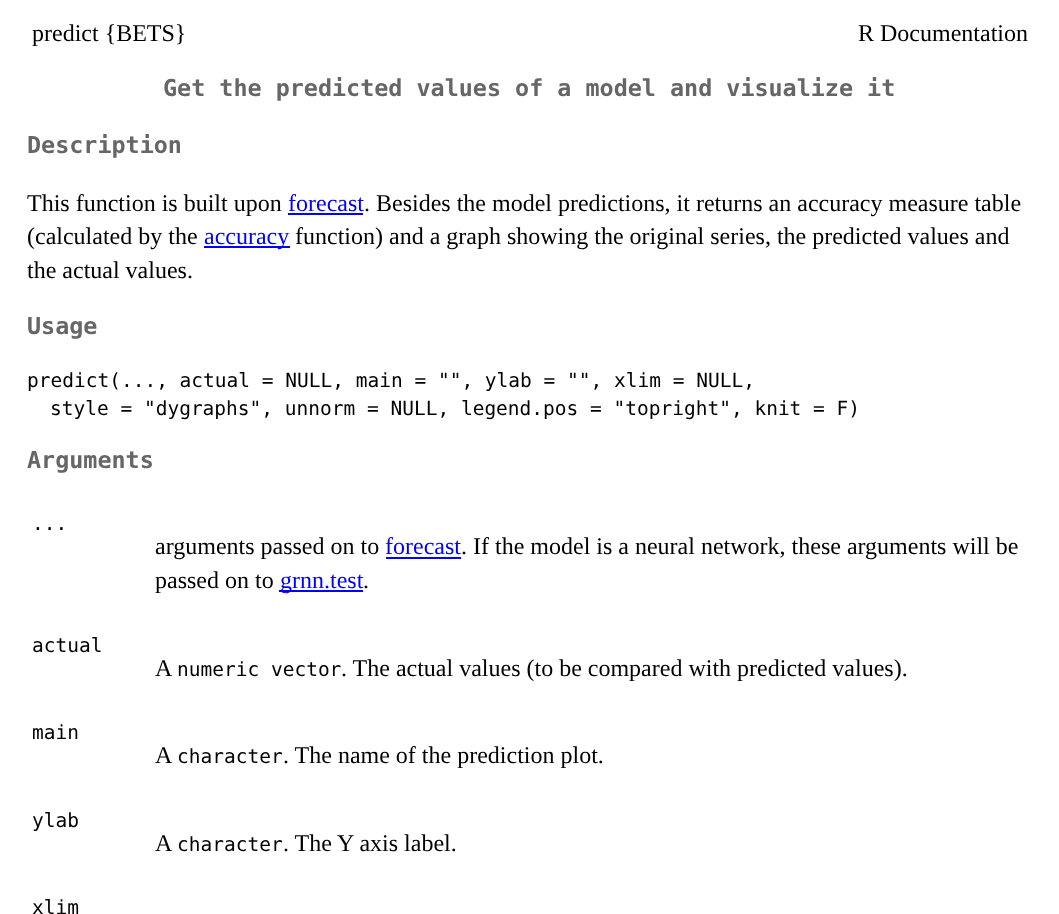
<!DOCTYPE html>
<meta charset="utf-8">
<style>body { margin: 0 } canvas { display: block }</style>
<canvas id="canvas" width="1059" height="914"></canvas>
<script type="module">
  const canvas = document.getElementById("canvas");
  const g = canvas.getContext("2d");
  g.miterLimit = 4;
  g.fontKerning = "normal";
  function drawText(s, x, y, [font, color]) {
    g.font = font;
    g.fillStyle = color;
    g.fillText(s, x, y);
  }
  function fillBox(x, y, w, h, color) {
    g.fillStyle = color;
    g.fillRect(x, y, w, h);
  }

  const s1 = ["24px Liberation Serif", "#000000"];
  const s2 = ["bold 23.4px DejaVu Sans Mono", "#666666"];
  const s3 = ["24px Liberation Serif", "#0000FF"];
  const s4 = ["19.5px DejaVu Sans Mono", "#000000"];

  fillBox(0, 0, 1059, 914, "#FFFFFF");
  drawText("predict {BETS}", 32, 41, s1);
  drawText("R Documentation", 858, 41, s1);
  drawText("Get the predicted values of a model and visualize it", 163, 96, s2);
  drawText("Description", 27, 153, s2);
  drawText("This function is built upon", 27, 211, s1);
  drawText("forecast", 288, 211, s3);
  fillBox(288, 213, 75, 2, "#0000FF");
  drawText(". Besides the model predictions, it returns an accuracy measure table", 364, 211, s1);
  drawText("(calculated by the", 27, 244, s1);
  fillBox(204, 246, 86, 2, "#0000FF");
  drawText("accuracy", 204, 244, s3);
  drawText("function) and a graph showing the original series, the predicted values and", 295, 244, s1);
  drawText("the actual values.", 27, 278, s1);
  drawText("Usage", 27, 334, s2);
  drawText("predict(..., actual = NULL, main = \"\", ylab = \"\", xlim = NULL,", 27, 387, s4);
  drawText("style = \"dygraphs\", unnorm = NULL, legend.pos = \"topright\", knit = F)", 50, 415, s4);
  drawText("Arguments", 27, 468, s2);
  drawText("...", 32, 530, s4);
  drawText("arguments passed on to", 155, 554, s1);
  drawText("forecast", 385, 554, s3);
  fillBox(386, 557, 75, 2, "#0000FF");
  drawText(". If the model is a neural network, these arguments will be", 461, 554, s1);
  drawText("passed on to", 155, 588, s1);
  fillBox(279, 590, 84, 2, "#0000FF");
  drawText("grnn.test", 280, 588, s3);
  drawText(".", 363, 588, s1);
  drawText("actual", 32, 652, s4);
  drawText("A", 155, 676, s1);
  drawText("numeric vector", 177, 676, s4);
  drawText(". The actual values (to be compared with predicted values).", 341, 676, s1);
  drawText("main", 32, 739, s4);
  drawText("A", 155, 763, s1);
  drawText("character", 177, 763, s4);
  drawText(". The name of the prediction plot.", 283, 763, s1);
  drawText("ylab", 32, 827, s4);
  drawText("A", 155, 851, s1);
  drawText("character", 177, 851, s4);
  drawText(". The Y axis label.", 283, 851, s1);
  drawText("xlim", 32, 914, s4);
</script>
